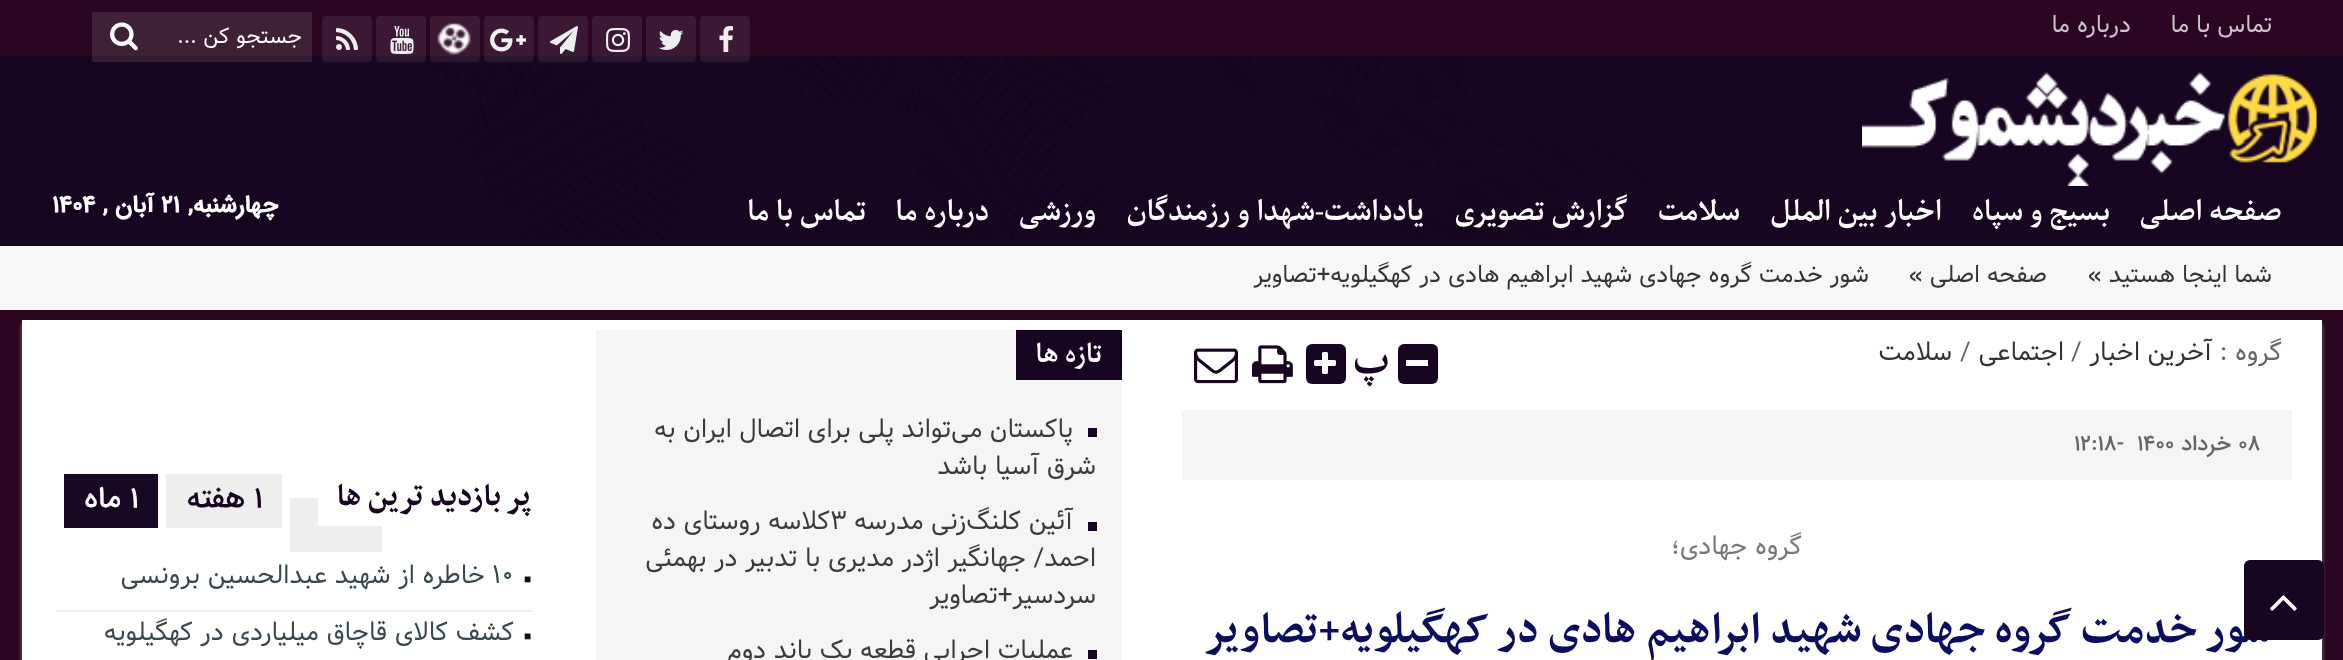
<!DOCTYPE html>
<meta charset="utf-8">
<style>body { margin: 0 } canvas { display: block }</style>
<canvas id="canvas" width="2343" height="660"></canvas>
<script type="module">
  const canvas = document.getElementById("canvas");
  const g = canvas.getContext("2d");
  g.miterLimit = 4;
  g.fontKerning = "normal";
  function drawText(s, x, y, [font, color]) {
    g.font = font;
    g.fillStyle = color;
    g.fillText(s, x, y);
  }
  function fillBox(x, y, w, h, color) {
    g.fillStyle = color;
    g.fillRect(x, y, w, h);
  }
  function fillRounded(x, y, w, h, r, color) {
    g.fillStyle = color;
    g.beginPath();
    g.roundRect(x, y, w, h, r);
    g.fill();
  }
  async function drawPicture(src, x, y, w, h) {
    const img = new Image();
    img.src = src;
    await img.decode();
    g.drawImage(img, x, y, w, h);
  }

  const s1 = ["24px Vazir", "#CDC5CB"];
  const s2 = ["22px Vazir", "#FFFFFF"];
  const s3 = ["bold 28px Parastoo", "#FFFFFF"];
  const s4 = ["28px Liberation Serif", "#FFFFFF"];
  const s5 = ["bold 24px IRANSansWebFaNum", "#FFFFFF"];
  const s6 = ["24px Vazir", "#333333"];
  const s7 = ["bold 50.4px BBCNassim", "#0B0E5F"];
  const s8 = ["26px Vazir", "#666666"];
  const s9 = ["26px Vazir", "#333333"];
  const s10 = ["bold 44px BBCNassim", "#170521"];
  const s11 = ["500 22px IRANSansWebFaNum", "#666666"];
  const s12 = ["26px Vazir", "#777777"];
  const s13 = ["bold 26px Parastoo", "#FFFFFF"];
  const s14 = ["26px Vazir", "#3B3B3B"];
  const s15 = ["bold 36px BBCNassim", "#170521"];
  const s16 = ["500 30px IRANSansWebFaNum", "#170521"];
  const s17 = ["500 30px IRANSansWebFaNum", "#FFFFFF"];
  const s18 = ["12px Liberation Serif", "#170521"];
  const s19 = ["26px Vazir", "#394951"];

  fillBox(0, 0, 2343, 660, "#2B0623");
  fillBox(92, 12, 220, 44, "#3E2037");
  g.direction = "rtl";
  drawText("تماس با ما", 2272, 32, s1);
  drawText("درباره ما", 2131, 32, s1);
  fillBox(0, 56, 2343, 190, "#170521");
  await drawPicture("pic10.png", 425, 56, 1242, 190);
  fillRounded(700, 16, 50, 46, 4, "rgba(255, 255, 255, 0.08)");
  await drawPicture("pic1.png", 719, 26, 14, 26);
  fillRounded(646, 16, 50, 46, 4, "rgba(255, 255, 255, 0.08)");
  await drawPicture("pic2.png", 658, 30, 26, 20);
  fillRounded(592, 16, 50, 46, 4, "rgba(255, 255, 255, 0.08)");
  await drawPicture("pic3.png", 606, 28, 24, 24);
  fillRounded(538, 16, 50, 46, 4, "rgba(255, 255, 255, 0.08)");
  await drawPicture("pic4.png", 550, 26, 28, 28);
  fillRounded(484, 16, 50, 46, 4, "rgba(255, 255, 255, 0.08)");
  await drawPicture("pic5.png", 490, 28, 36, 24);
  fillRounded(430, 16, 50, 46, 4, "rgba(255, 255, 255, 0.08)");
  await drawPicture("pic6.png", 437, 23, 34, 32);
  fillRounded(376, 16, 50, 46, 4, "rgba(255, 255, 255, 0.08)");
  await drawPicture("pic7.png", 390, 26, 24, 28);
  fillRounded(322, 16, 50, 46, 4, "rgba(255, 255, 255, 0.08)");
  await drawPicture("pic8.png", 336, 28, 22, 22);
  drawText("جستجو کن ...", 302, 43, s2);
  await drawPicture("pic9.png", 110, 22, 28, 29);
  fillBox(92, 56, 220, 6, "#2E1F35");
  await drawPicture("pic11.png", 1862, 72, 455, 114);
  drawText("صفحه اصلی", 2282, 220, s3);
  drawText("بسیج و سپاه", 2110, 220, s3);
  drawText("اخبار بین الملل", 1942, 220, s3);
  drawText("سلامت", 1740, 220, s3);
  drawText("گزارش تصویری", 1628, 220, s3);
  drawText("یادداشت", 1424, 220, s3);
  drawText("-", 1324, 220, s4);
  drawText("شهدا و رزمندگان", 1315, 220, s3);
  drawText("ورزشی", 1096, 220, s3);
  drawText("درباره ما", 989, 220, s3);
  drawText("تماس با ما", 866, 220, s3);
  drawText("چهارشنبه,", 278, 212, s5);
  g.direction = "ltr";
  drawText("۲۱", 161, 212, s5);
  g.direction = "rtl";
  drawText("آبان ,", 154, 212, s5);
  g.direction = "ltr";
  drawText("۱۴۰۴", 52, 212, s5);
  fillBox(0, 246, 2343, 64, "#F7F7F7");
  g.direction = "rtl";
  drawText("شما اینجا هستید »", 2272, 282, s6);
  drawText("صفحه اصلی »", 2047, 282, s6);
  drawText("شور خدمت گروه جهادی شهید ابراهیم هادی در کهگیلویه+تصاویر", 1869, 282, s6);
  g.fillStyle = "rgba(207, 207, 207, 0.54)";
  g.filter = "blur(2px)";
  g.beginPath();
  g.rect(22, 324, 2300, 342);
  g.fill();
  g.filter = "none";
  fillBox(22, 320, 2300, 340, "#FFFFFF");
  drawText("شور خدمت گروه جهادی شهید ابراهیم هادی در کهگیلویه+تصاویر", 2272, 642, s7);
  fillRounded(2244, 560, 80, 80, 6, "#170521");
  await drawPicture("pic12.png", 2270, 595, 27, 16);
  drawText("گروه :", 2282, 360, s8);
  drawText("آخرین اخبار", 2212, 360, s9);
  g.direction = "ltr";
  drawText("/", 2071, 360, s8);
  g.direction = "rtl";
  drawText("اجتماعی", 2064, 360, s9);
  g.direction = "ltr";
  drawText("/", 1960, 360, s8);
  g.direction = "rtl";
  drawText("سلامت", 1952, 360, s9);
  fillRounded(1398, 344, 40, 40, 6, "#170521");
  fillBox(1406, 360, 22, 6, "#FFFFFF");
  drawText("پ", 1389, 372, s10);
  fillRounded(1306, 344, 40, 40, 6, "#170521");
  await drawPicture("pic13.png", 1314, 352, 22, 22);
  await drawPicture("pic14.png", 1252, 345, 41, 39);
  await drawPicture("pic15.png", 1194, 348, 44, 36);
  fillBox(1182, 410, 1110, 70, "#F5F5F5");
  g.direction = "ltr";
  drawText("08", 2238, 450, s11);
  g.direction = "rtl";
  drawText("خرداد", 2231, 450, s11);
  g.direction = "ltr";
  drawText("1400", 2137, 450, s11);
  drawText("12:18-", 2074, 450, s11);
  g.direction = "rtl";
  drawText("گروه جهادی؛", 1802, 554, s12);
  fillBox(596, 330, 526, 330, "#F5F5F5");
  fillBox(1016, 330, 106, 50, "#170521");
  drawText("تازه ها", 1102, 362, s13);
  fillBox(1088, 428, 9, 9, "#170521");
  drawText("پاکستان می‌تواند پلی برای اتصال ایران به", 1073, 437, s14);
  drawText("شرق آسیا باشد", 1096, 474, s14);
  fillBox(1088, 522, 9, 9, "#170521");
  drawText("آئین کلنگ‌زنی مدرسه", 1073, 529, s14);
  g.direction = "ltr";
  drawText("۳", 830, 529, s14);
  g.direction = "rtl";
  drawText("کلاسه روستای ده", 830, 529, s14);
  drawText("احمد/ جهانگیر اژدر مدیری با تدبیر در بهمئی", 1096, 566, s14);
  drawText("سردسیر+تصاویر", 1096, 603, s14);
  fillBox(1088, 650, 9, 9, "#170521");
  drawText("عملیات اجرایی قطعه یک باند دوم", 1073, 658, s14);
  fillBox(290, 498, 92, 54, "#EEEEEE");
  fillBox(318, 498, 64, 28, "#FFFFFF");
  drawText("پر بازدید ترین ها", 531, 505, s15);
  fillBox(166, 474, 116, 54, "#EEEEEE");
  g.direction = "ltr";
  drawText("1", 254, 507, s16);
  g.direction = "rtl";
  drawText("هفته", 245, 507, s16);
  fillBox(64, 474, 94, 54, "#190823");
  g.direction = "ltr";
  drawText("1", 130, 507, s17);
  g.direction = "rtl";
  drawText("ماه", 121, 507, s17);
  fillBox(56, 610, 476, 2, "#EEEEEE");
  g.direction = "ltr";
  drawText("■", 524, 583, s18);
  drawText("۱۰", 492, 583, s19);
  g.direction = "rtl";
  drawText("خاطره از شهید عبدالحسین برونسی", 485, 583, s19);
  g.direction = "ltr";
  drawText("■", 524, 640, s18);
  g.direction = "rtl";
  drawText("کشف کالای قاچاق میلیاردی در کهگیلویه", 514, 640, s19);
</script>
